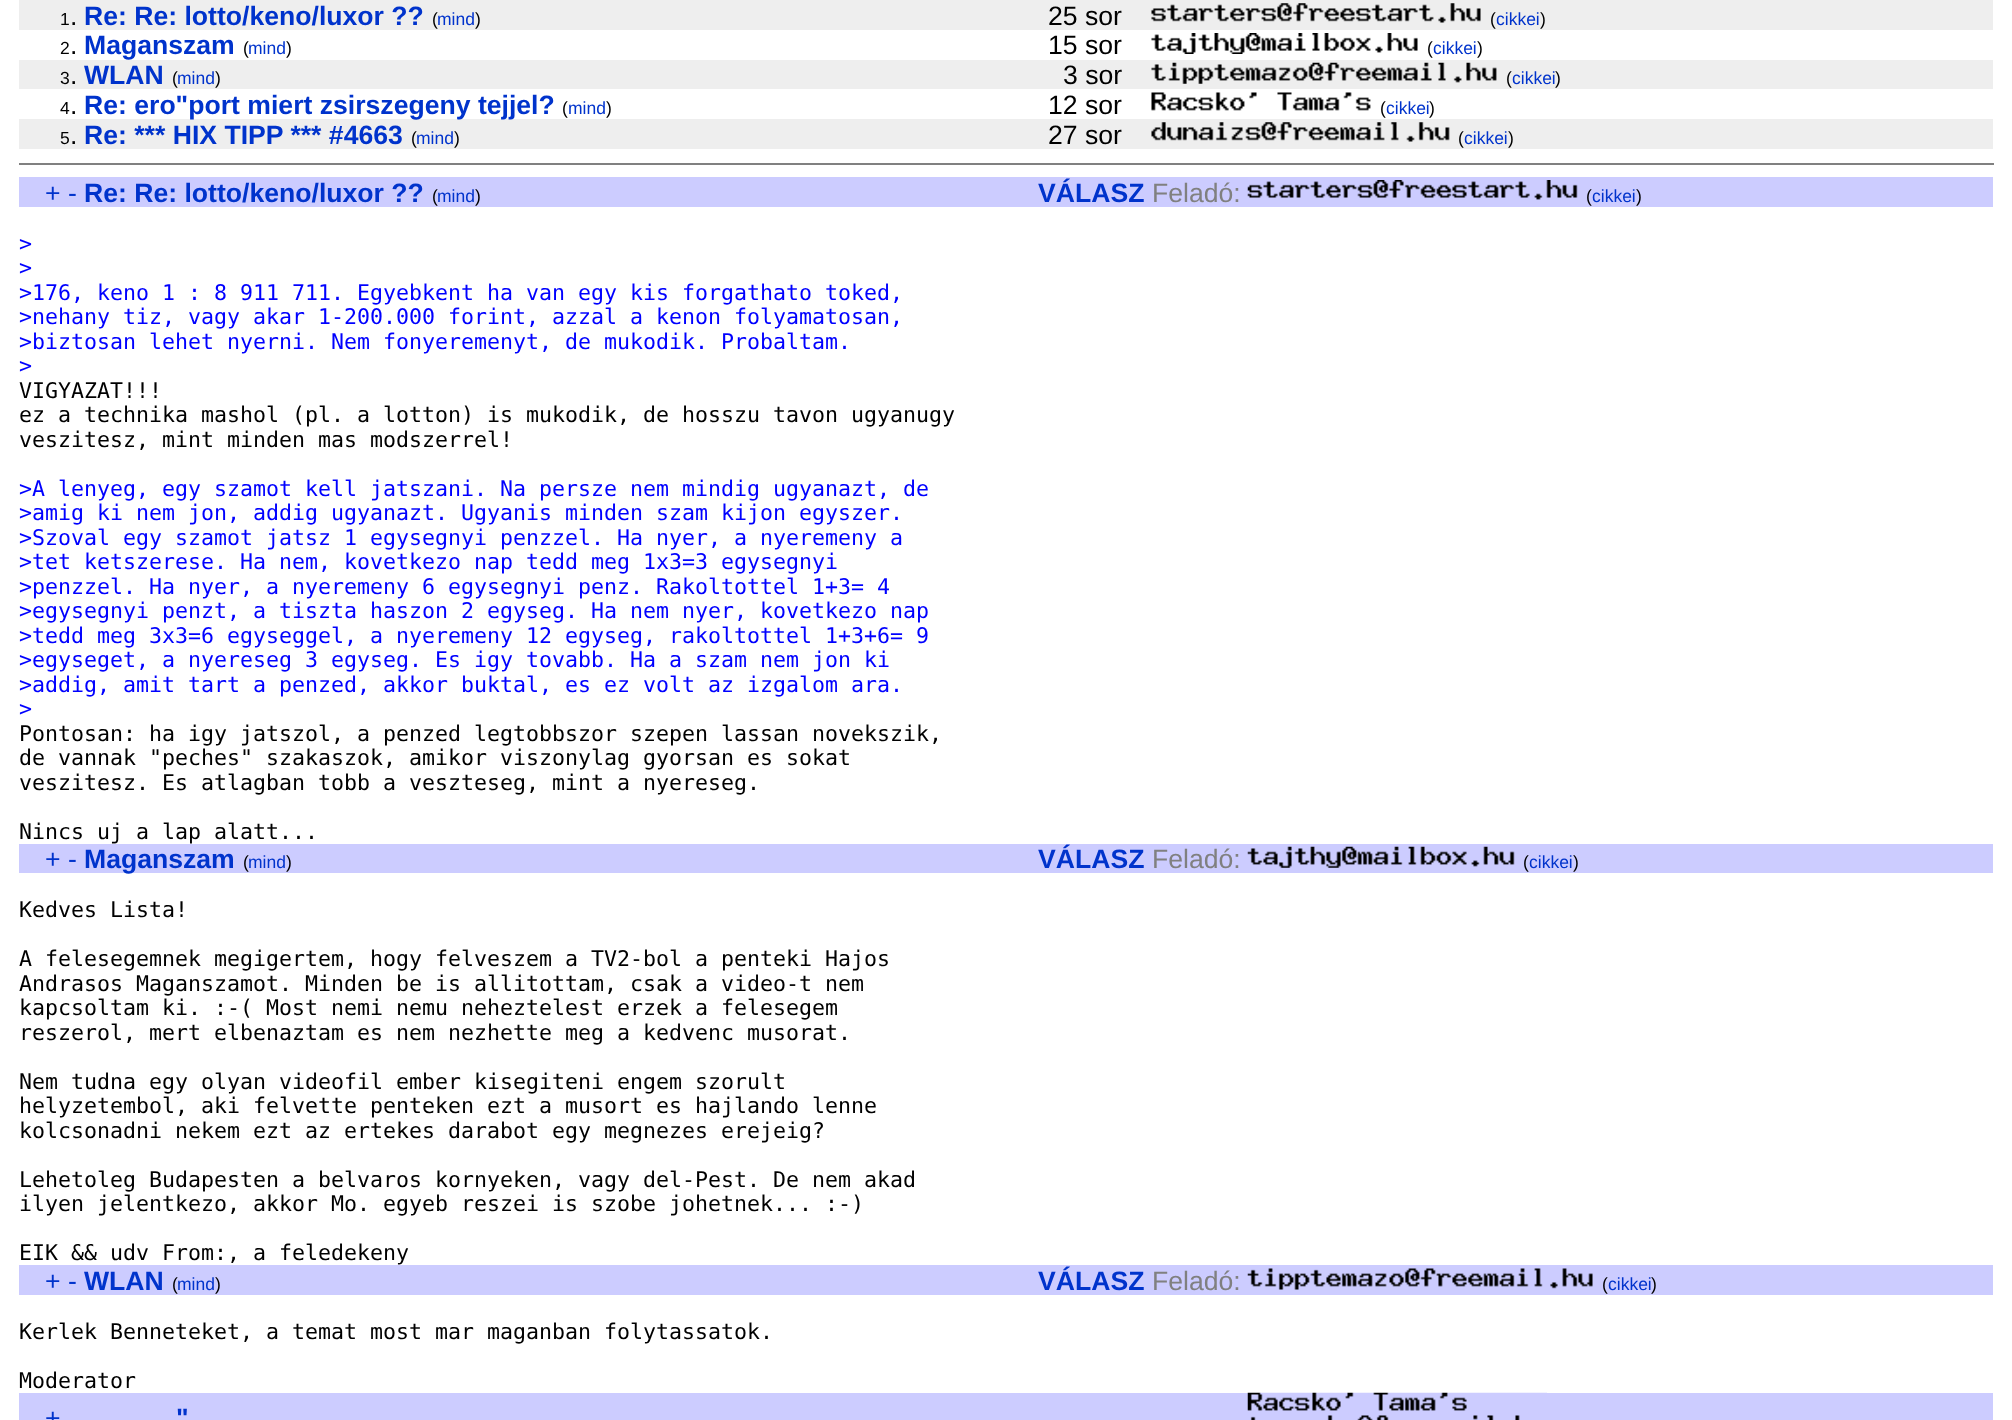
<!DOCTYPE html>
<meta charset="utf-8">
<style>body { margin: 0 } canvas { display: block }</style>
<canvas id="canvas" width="2012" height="1420"></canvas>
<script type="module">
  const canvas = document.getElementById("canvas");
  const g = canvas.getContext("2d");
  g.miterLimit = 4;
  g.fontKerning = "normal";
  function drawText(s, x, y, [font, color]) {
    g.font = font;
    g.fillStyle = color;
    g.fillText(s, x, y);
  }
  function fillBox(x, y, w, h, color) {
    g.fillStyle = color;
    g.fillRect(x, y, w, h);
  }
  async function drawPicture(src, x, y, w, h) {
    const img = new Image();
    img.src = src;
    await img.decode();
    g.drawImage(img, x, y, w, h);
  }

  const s1 = ["17.5px Liberation Sans", "#000000"];
  const s2 = ["26.6px Liberation Sans", "#000000"];
  const s3 = ["bold 26.6px Liberation Sans", "#0033CC"];
  const s4 = ["17.5px Liberation Sans", "#0033CC"];
  const s5 = ["26.6px Liberation Sans", "#0033CC"];
  const s6 = ["26.6px Liberation Sans", "#808080"];
  const s7 = ["21.6px DejaVu Sans Mono", "#0000FF"];
  const s8 = ["21.6px DejaVu Sans Mono", "#000000"];

  fillBox(0, 0, 2012, 1420, "#FFFFFF");
  fillBox(19, 0, 1974, 30, "#EEEEEE");
  drawText("1", 60, 25, s1);
  drawText(".", 70, 25, s2);
  drawText("Re: Re: lotto/keno/luxor ??", 84, 25, s3);
  drawText("(", 432, 25, s1);
  drawText("mind", 437, 25, s4);
  drawText(")", 475, 25, s1);
  drawText("25 sor", 1048, 25, s2);
  await drawPicture("pic1.png", 1151, 3, 330, 20);
  drawText("(", 1490, 25, s1);
  drawText("cikkei", 1496, 25, s4);
  drawText(")", 1540, 25, s1);
  drawText("2", 60, 54, s1);
  drawText(".", 70, 54, s2);
  drawText("Maganszam", 84, 54, s3);
  drawText("(", 243, 54, s1);
  drawText("mind", 248, 54, s4);
  drawText(")", 286, 54, s1);
  drawText("15 sor", 1048, 54, s2);
  await drawPicture("pic2.png", 1151, 33, 267, 21);
  drawText("(", 1427, 54, s1);
  drawText("cikkei", 1433, 54, s4);
  drawText(")", 1477, 54, s1);
  fillBox(19, 60, 1974, 29, "#EEEEEE");
  drawText("3", 60, 84, s1);
  drawText(".", 70, 84, s2);
  drawText("WLAN", 84, 84, s3);
  drawText("(", 172, 84, s1);
  drawText("mind", 177, 84, s4);
  drawText(")", 215, 84, s1);
  drawText("3 sor", 1063, 84, s2);
  await drawPicture("pic3.png", 1151, 62, 346, 22);
  drawText("(", 1506, 84, s1);
  drawText("cikkei", 1512, 84, s4);
  drawText(")", 1555, 84, s1);
  drawText("4", 60, 114, s1);
  drawText(".", 70, 114, s2);
  fillBox(19, 119, 1974, 30, "#EEEEEE");
  drawText("Re: ero\"port miert zsirszegeny tejjel?", 84, 114, s3);
  drawText("(", 562, 114, s1);
  drawText("mind", 568, 114, s4);
  drawText(")", 606, 114, s1);
  drawText("12 sor", 1048, 114, s2);
  await drawPicture("pic4.png", 1151, 92, 220, 19);
  drawText("(", 1380, 114, s1);
  drawText("cikkei", 1386, 114, s4);
  drawText(")", 1429, 114, s1);
  drawText("5", 60, 144, s1);
  drawText(".", 70, 144, s2);
  drawText("Re: *** HIX TIPP *** #4663", 84, 144, s3);
  drawText("(", 411, 144, s1);
  drawText("mind", 416, 144, s4);
  drawText(")", 454, 144, s1);
  drawText("27 sor", 1048, 144, s2);
  await drawPicture("pic5.png", 1151, 122, 299, 20);
  drawText("(", 1458, 144, s1);
  drawText("cikkei", 1464, 144, s4);
  drawText(")", 1508, 144, s1);
  fillBox(19, 163, 1975, 2, "#808080");
  fillBox(19, 177, 1974, 30, "#CCCCFF");
  drawText("+ -", 45, 202, s5);
  drawText("Re: Re: lotto/keno/luxor ??", 84, 202, s3);
  drawText("(", 432, 202, s1);
  drawText("mind", 437, 202, s4);
  drawText(")", 475, 202, s1);
  drawText("VÁLASZ", 1038, 202, s3);
  drawText("Feladó:", 1152, 202, s6);
  await drawPicture("pic6.png", 1247, 180, 331, 20);
  drawText("(", 1586, 202, s1);
  drawText("cikkei", 1592, 202, s4);
  drawText(")", 1636, 202, s1);
  drawText(">", 19, 251, s7);
  drawText(">", 19, 275, s7);
  drawText(">176, keno 1 : 8 911 711. Egyebkent ha van egy kis forgathato toked,", 19, 300, s7);
  drawText(">nehany tiz, vagy akar 1-200.000 forint, azzal a kenon folyamatosan,", 19, 324, s7);
  drawText(">biztosan lehet nyerni. Nem fonyeremenyt, de mukodik. Probaltam.", 19, 349, s7);
  drawText(">", 19, 373, s7);
  drawText("VIGYAZAT!!!", 19, 398, s8);
  drawText("ez a technika mashol (pl. a lotton) is mukodik, de hosszu tavon ugyanugy", 19, 422, s8);
  drawText("veszitesz, mint minden mas modszerrel!", 19, 447, s8);
  drawText(">A lenyeg, egy szamot kell jatszani. Na persze nem mindig ugyanazt, de", 19, 496, s7);
  drawText(">amig ki nem jon, addig ugyanazt. Ugyanis minden szam kijon egyszer.", 19, 520, s7);
  drawText(">Szoval egy szamot jatsz 1 egysegnyi penzzel. Ha nyer, a nyeremeny a", 19, 545, s7);
  drawText(">tet ketszerese. Ha nem, kovetkezo nap tedd meg 1x3=3 egysegnyi", 19, 569, s7);
  drawText(">penzzel. Ha nyer, a nyeremeny 6 egysegnyi penz. Rakoltottel 1+3= 4", 19, 594, s7);
  drawText(">egysegnyi penzt, a tiszta haszon 2 egyseg. Ha nem nyer, kovetkezo nap", 19, 618, s7);
  drawText(">tedd meg 3x3=6 egyseggel, a nyeremeny 12 egyseg, rakoltottel 1+3+6= 9", 19, 643, s7);
  drawText(">egyseget, a nyereseg 3 egyseg. Es igy tovabb. Ha a szam nem jon ki", 19, 667, s7);
  drawText(">addig, amit tart a penzed, akkor buktal, es ez volt az izgalom ara.", 19, 692, s7);
  drawText(">", 19, 716, s7);
  drawText("Pontosan: ha igy jatszol, a penzed legtobbszor szepen lassan novekszik,", 19, 741, s8);
  drawText("de vannak \"peches\" szakaszok, amikor viszonylag gyorsan es sokat", 19, 765, s8);
  drawText("veszitesz. Es atlagban tobb a veszteseg, mint a nyereseg.", 19, 790, s8);
  drawText("Nincs uj a lap alatt...", 19, 839, s8);
  fillBox(19, 844, 1974, 29, "#CCCCFF");
  drawText("+ -", 45, 868, s5);
  drawText("Maganszam", 84, 868, s3);
  drawText("(", 243, 868, s1);
  drawText("mind", 248, 868, s4);
  drawText(")", 286, 868, s1);
  drawText("VÁLASZ", 1038, 868, s3);
  drawText("Feladó:", 1152, 868, s6);
  await drawPicture("pic7.png", 1247, 846, 268, 22);
  drawText("(", 1523, 868, s1);
  drawText("cikkei", 1529, 868, s4);
  drawText(")", 1573, 868, s1);
  drawText("Kedves Lista!", 19, 917, s8);
  drawText("A felesegemnek megigertem, hogy felveszem a TV2-bol a penteki Hajos", 19, 966, s8);
  drawText("Andrasos Maganszamot. Minden be is allitottam, csak a video-t nem", 19, 991, s8);
  drawText("kapcsoltam ki. :-( Most nemi nemu neheztelest erzek a felesegem", 19, 1015, s8);
  drawText("reszerol, mert elbenaztam es nem nezhette meg a kedvenc musorat.", 19, 1040, s8);
  drawText("Nem tudna egy olyan videofil ember kisegiteni engem szorult", 19, 1089, s8);
  drawText("helyzetembol, aki felvette penteken ezt a musort es hajlando lenne", 19, 1113, s8);
  drawText("kolcsonadni nekem ezt az ertekes darabot egy megnezes erejeig?", 19, 1138, s8);
  drawText("Lehetoleg Budapesten a belvaros kornyeken, vagy del-Pest. De nem akad", 19, 1187, s8);
  drawText("ilyen jelentkezo, akkor Mo. egyeb reszei is szobe johetnek... :-)", 19, 1211, s8);
  drawText("EIK && udv From:, a feledekeny", 19, 1260, s8);
  fillBox(19, 1265, 1974, 30, "#CCCCFF");
  drawText("+ -", 45, 1290, s5);
  drawText("WLAN", 84, 1290, s3);
  drawText("(", 172, 1290, s1);
  drawText("mind", 177, 1290, s4);
  drawText(")", 215, 1290, s1);
  drawText("VÁLASZ", 1038, 1290, s3);
  drawText("Feladó:", 1152, 1290, s6);
  await drawPicture("pic8.png", 1247, 1268, 346, 22);
  drawText("(", 1602, 1290, s1);
  drawText("cikkei", 1608, 1290, s4);
  drawText(")", 1651, 1290, s1);
  drawText("Kerlek Benneteket, a temat most mar maganban folytassatok.", 19, 1339, s8);
  drawText("Moderator", 19, 1388, s8);
  fillBox(19, 1393, 1974, 27, "#CCCCFF");
  drawText("+", 45, 1427, s5);
  drawText("\"", 176, 1427, s3);
  await drawPicture("pic9.png", 1247, 1392, 300, 28);
</script>
